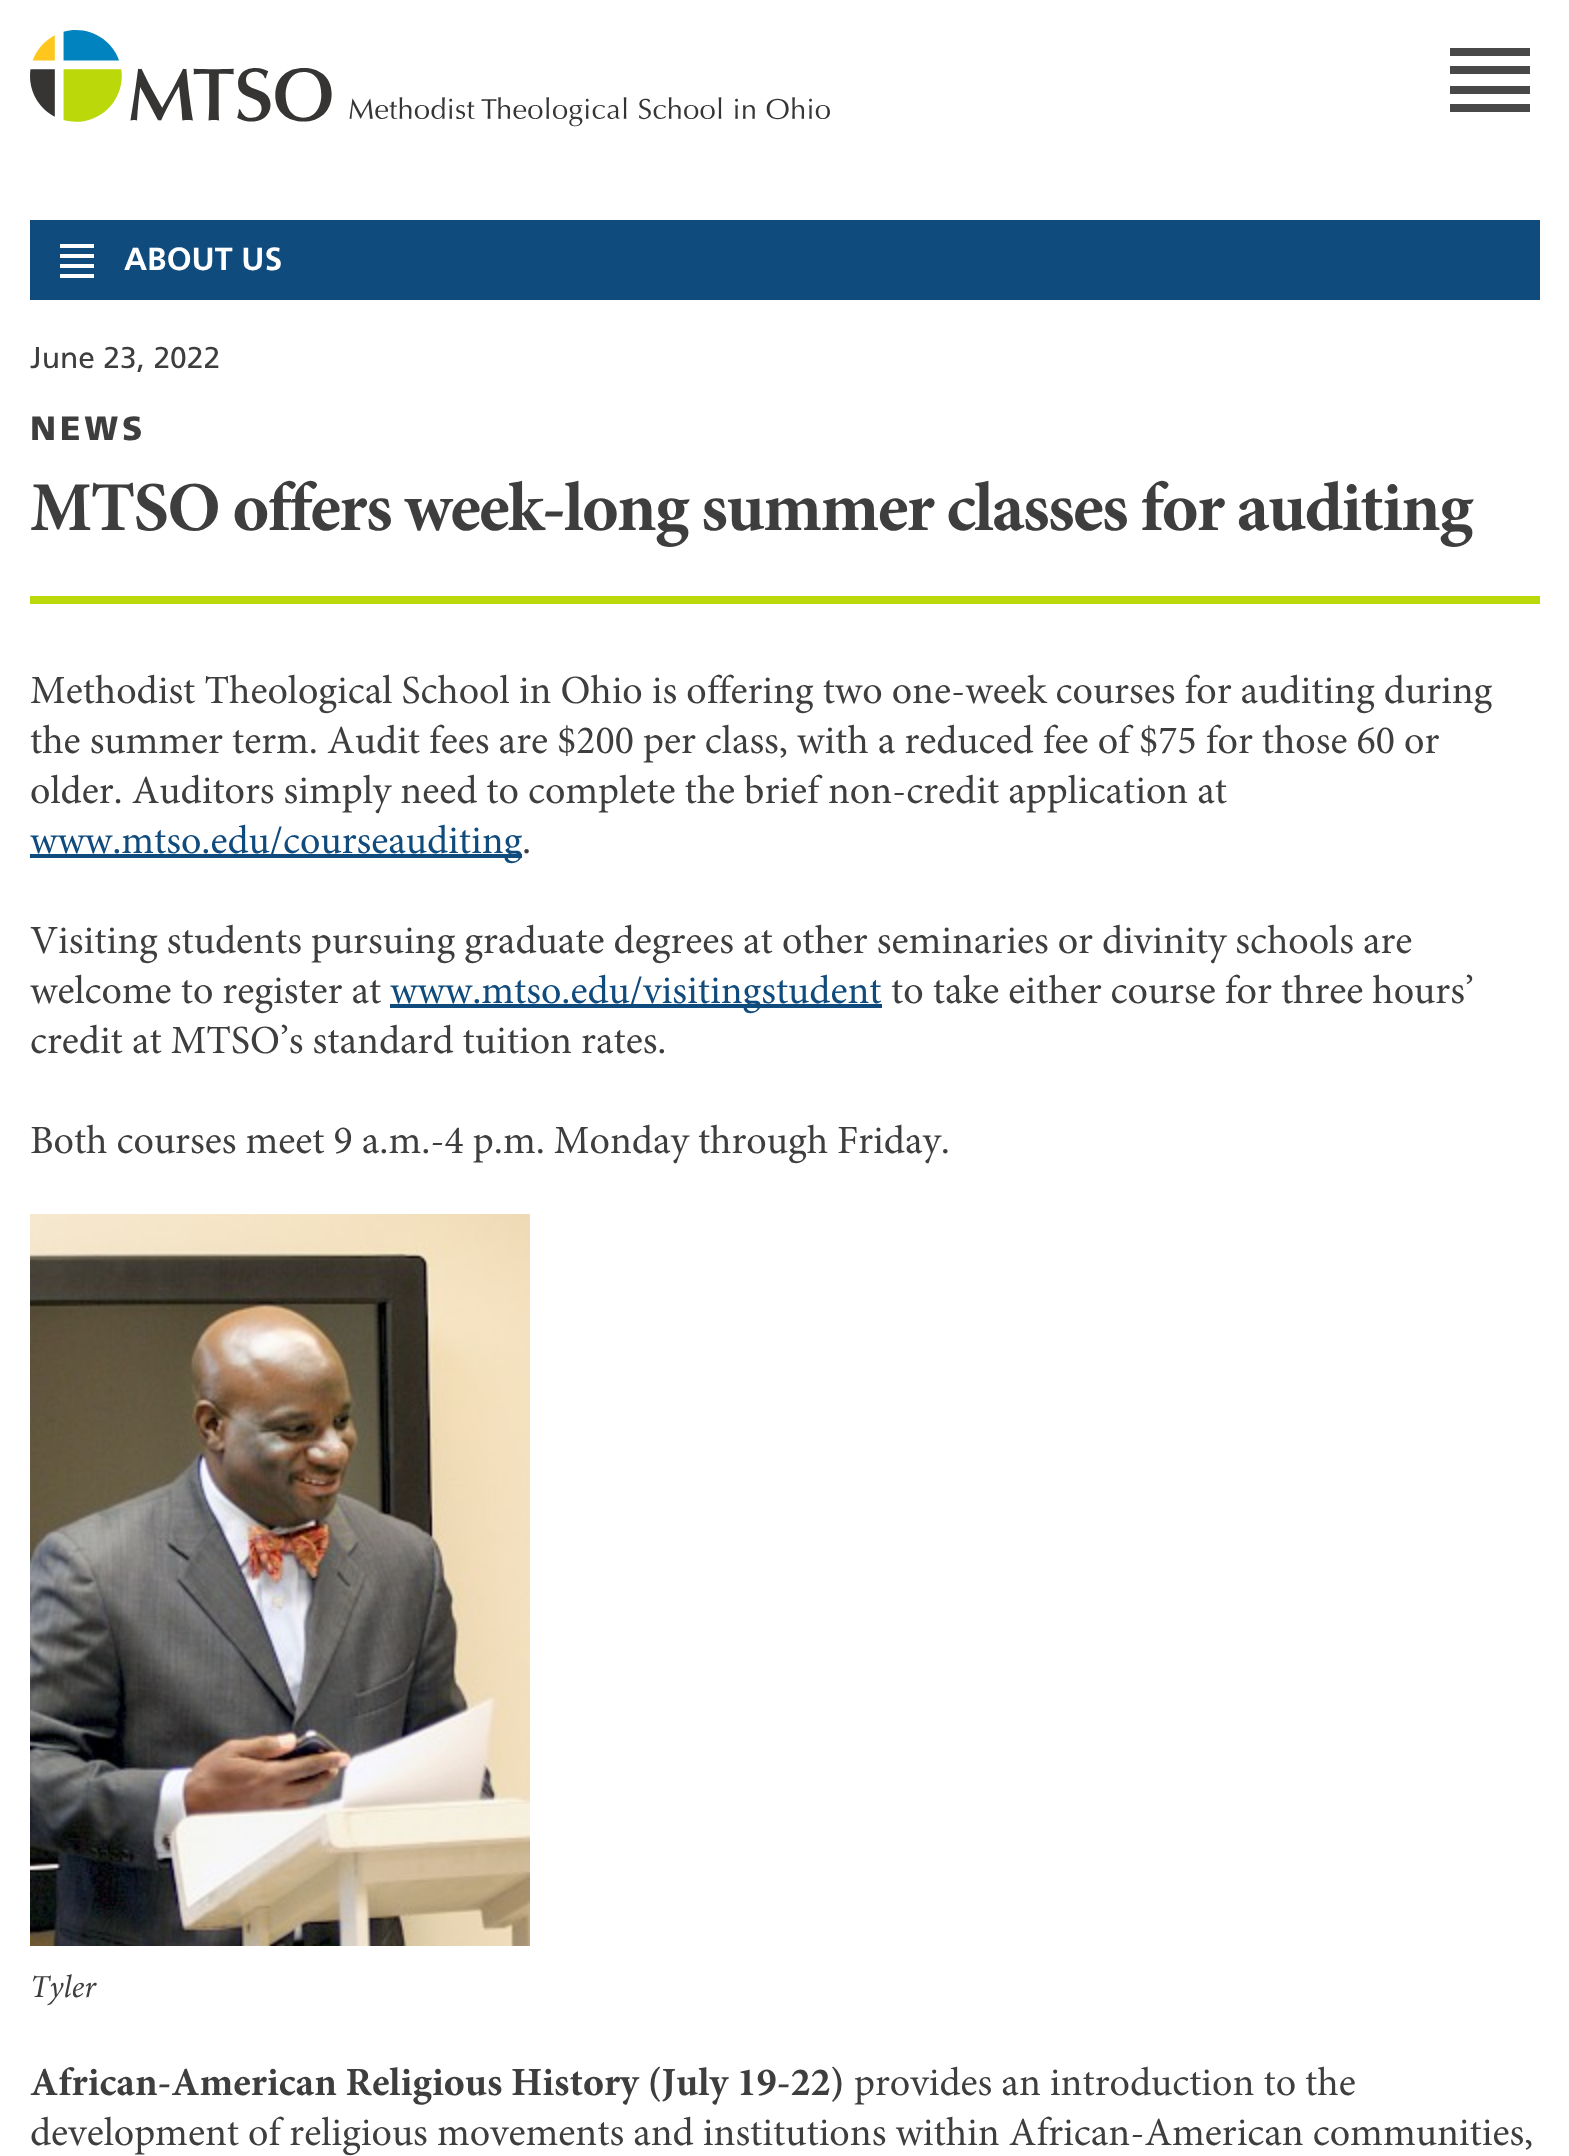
<!DOCTYPE html>
<meta charset="utf-8">
<style>body { margin: 0 } canvas { display: block }</style>
<canvas id="canvas" width="1569" height="2156"></canvas>
<script type="module">
  const canvas = document.getElementById("canvas");
  const g = canvas.getContext("2d");
  g.miterLimit = 4;
  g.fontKerning = "normal";
  function drawText(s, x, y, [font, color]) {
    g.font = font;
    g.fillStyle = color;
    g.fillText(s, x, y);
  }
  function fillBox(x, y, w, h, color) {
    g.fillStyle = color;
    g.fillRect(x, y, w, h);
  }
  async function drawPicture(src, x, y, w, h) {
    const img = new Image();
    img.src = src;
    await img.decode();
    g.drawImage(img, x, y, w, h);
  }

  const s1 = ["bold 32px Frutiger", "#FFFFFF"];
  const s2 = ["30px Frutiger", "#3E3E3E"];
  const s3 = ["900 33.5px Frutiger", "#3E3E3E"];
  const s4 = ["bold 70px Minion", "#3E3E3E"];
  const s5 = ["40px Minion", "#3E3E3E"];
  const s6 = ["40px Minion", "#104B7D"];
  const s7 = ["italic 32px Minion", "#3E3E3E"];
  const s8 = ["bold 40px Minion", "#3E3E3E"];

  fillBox(0, 0, 1569, 2156, "#FFFFFF");
  await drawPicture("pic1.png", 30, 30, 800, 97);
  fillBox(1450, 48, 80, 8, "#484848");
  fillBox(1450, 66, 80, 8, "#484848");
  fillBox(1450, 86, 80, 8, "#484848");
  fillBox(1450, 104, 80, 8, "#484848");
  fillBox(30, 220, 1510, 80, "#104B7D");
  fillBox(60, 244, 34, 4, "#FFFFFF");
  fillBox(60, 254, 34, 4, "#FFFFFF");
  fillBox(60, 264, 34, 4, "#FFFFFF");
  fillBox(60, 274, 34, 4, "#FFFFFF");
  drawText("ABOUT US", 124, 270, s1);
  fillBox(30, 596, 1510, 8, "#BAD80A");
  drawText("June 23, 2022", 30, 368, s2);
  g.letterSpacing = "4px";
  drawText("NEWS", 30, 440, s3);
  g.letterSpacing = "-1.75px";
  drawText("MTSO offers week-long summer classes for auditing", 30, 530, s4);
  g.letterSpacing = "0px";
  drawText("Methodist Theological School in Ohio is offering two one-week courses for auditing during", 30, 703, s5);
  drawText("the summer term. Audit fees are $200 per class, with a reduced fee of $75 for those 60 or", 30, 753, s5);
  drawText("older. Auditors simply need to complete the brief non-credit application at", 30, 803, s5);
  fillBox(30, 854, 492, 4, "#104B7D");
  drawText("www.mtso.edu/courseauditing", 30, 853, s6);
  drawText(".", 522, 853, s5);
  drawText("Visiting students pursuing graduate degrees at other seminaries or divinity schools are", 30, 953, s5);
  drawText("welcome to register at", 30, 1003, s5);
  fillBox(390, 1004, 492, 4, "#104B7D");
  drawText("www.mtso.edu/visitingstudent", 390, 1003, s6);
  drawText("to take either course for three hours’", 891, 1003, s5);
  drawText("credit at MTSO’s standard tuition rates.", 30, 1053, s5);
  drawText("Both courses meet 9 a.m.-4 p.m. Monday through Friday.", 30, 1153, s5);
  await drawPicture("pic2.png", 30, 1214, 500, 732);
  drawText("Tyler", 30, 1997, s7);
  drawText("African-American Religious History (July 19-22)", 30, 2095, s8);
  drawText("provides an introduction to the", 854, 2095, s5);
  drawText("development of religious movements and institutions within African-American communities,", 30, 2145, s5);
</script>
